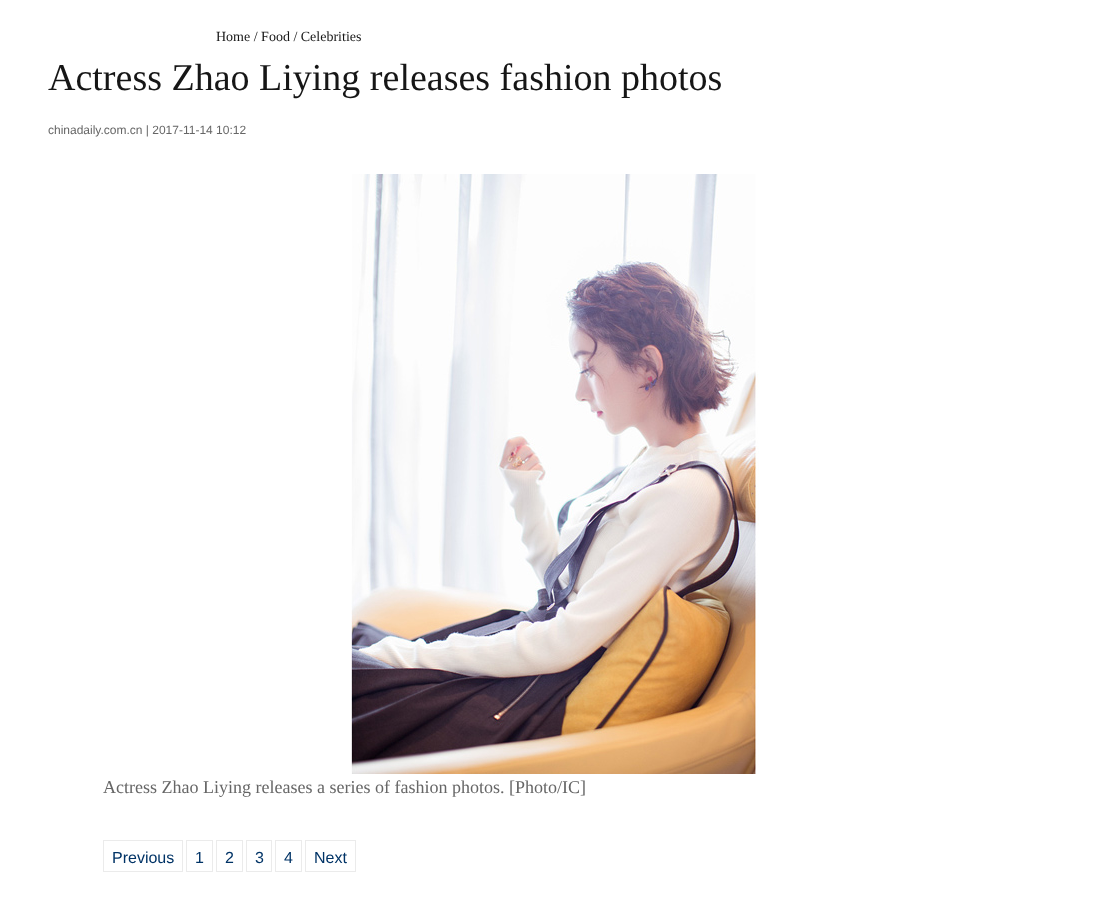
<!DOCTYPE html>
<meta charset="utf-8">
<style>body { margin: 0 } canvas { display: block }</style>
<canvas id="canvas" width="1105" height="917"></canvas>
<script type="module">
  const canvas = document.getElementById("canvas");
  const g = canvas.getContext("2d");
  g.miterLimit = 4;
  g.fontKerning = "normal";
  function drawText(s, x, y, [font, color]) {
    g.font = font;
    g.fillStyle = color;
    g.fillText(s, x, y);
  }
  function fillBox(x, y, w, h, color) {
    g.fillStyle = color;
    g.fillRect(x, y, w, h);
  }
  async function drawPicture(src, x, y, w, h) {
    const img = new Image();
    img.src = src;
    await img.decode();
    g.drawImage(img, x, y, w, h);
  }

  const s1 = ["14px Liberation Serif", "#161616"];
  const s2 = ["38px Liberation Serif", "#161616"];
  const s3 = ["12px Liberation Sans", "#666666"];
  const s4 = ["18px Liberation Serif", "#666666"];
  const s5 = ["16px Liberation Sans", "#003366"];

  fillBox(0, 0, 1105, 917, "#FFFFFF");
  drawText("Home / Food / Celebrities", 216, 41, s1);
  drawText("Actress Zhao Liying releases fashion photos", 48, 90, s2);
  drawText("chinadaily.com.cn | 2017-11-14 10:12", 48, 134, s3);
  await drawPicture("pic1.png", 351, 174, 408, 600);
  drawText("Actress Zhao Liying releases a series of fashion photos. [Photo/IC]", 103, 793, s4);
  g.strokeStyle = "#EBEBEB";
  g.strokeRect(103.5, 840.5, 79, 31);
  drawText("Previous", 112, 863, s5);
  g.strokeRect(186.5, 840.5, 26, 31);
  drawText("1", 195, 863, s5);
  g.strokeRect(216.5, 840.5, 26, 31);
  drawText("2", 225, 863, s5);
  g.strokeRect(246.5, 840.5, 25, 31);
  drawText("3", 255, 863, s5);
  g.strokeRect(275.5, 840.5, 26, 31);
  drawText("4", 284, 863, s5);
  g.strokeRect(305.5, 840.5, 50, 31);
  drawText("Next", 314, 863, s5);
</script>
